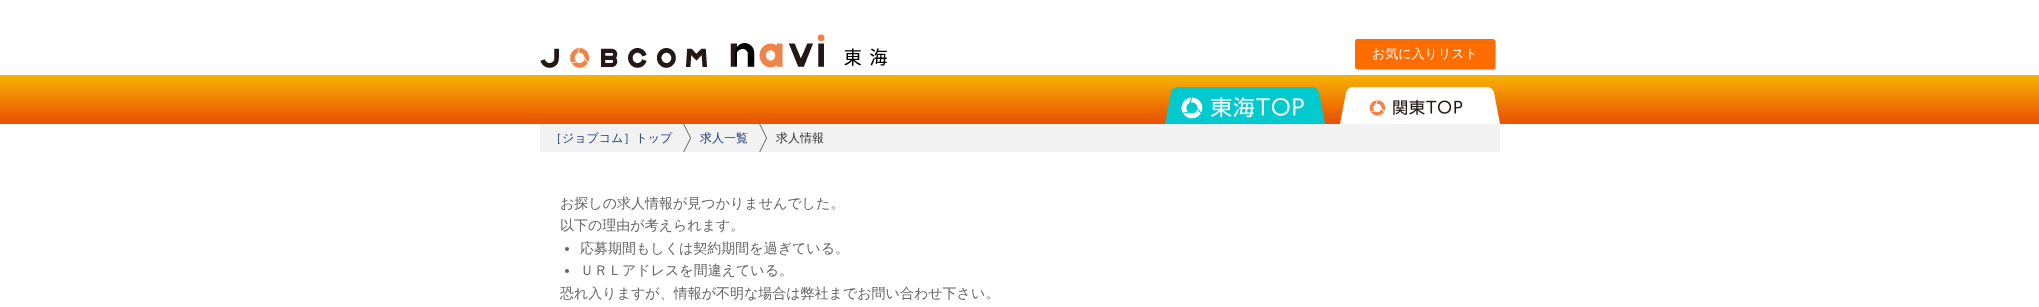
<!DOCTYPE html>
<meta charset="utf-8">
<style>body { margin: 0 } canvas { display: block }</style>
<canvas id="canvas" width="2039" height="307"></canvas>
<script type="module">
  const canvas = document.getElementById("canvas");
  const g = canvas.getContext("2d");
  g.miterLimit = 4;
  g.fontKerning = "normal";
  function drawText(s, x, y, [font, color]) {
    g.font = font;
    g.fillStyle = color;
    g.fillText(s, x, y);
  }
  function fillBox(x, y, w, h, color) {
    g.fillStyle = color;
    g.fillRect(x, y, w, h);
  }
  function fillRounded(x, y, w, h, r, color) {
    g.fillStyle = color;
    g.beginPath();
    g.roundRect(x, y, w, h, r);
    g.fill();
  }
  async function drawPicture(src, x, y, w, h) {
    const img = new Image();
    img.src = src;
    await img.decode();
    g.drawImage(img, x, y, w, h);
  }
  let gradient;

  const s1 = ["500 13px WenQuanYi Zen Hei", "#FFFFFF"];
  const s2 = ["500 12px WenQuanYi Zen Hei", "#193B7F"];
  const s3 = ["500 12px WenQuanYi Zen Hei", "#333333"];
  const s4 = ["500 14px WenQuanYi Zen Hei", "#666666"];

  fillBox(0, 0, 2039, 307, "#FFFFFF");
  fillBox(0, 120, 2039, 4, "#E95704");
  await drawPicture("pic1.png", 540, 34, 347, 34);
  g.fillStyle = "rgba(119, 119, 119, 0.48)";
  g.filter = "blur(0.5px)";
  g.beginPath();
  g.roundRect(1356, 40, 140, 30, 2);
  g.fill();
  g.filter = "none";
  fillRounded(1355, 39, 140, 30, 2, "#FF6C00");
  drawText("お気に入りリスト", 1372, 58, s1);
  gradient = g.createLinearGradient(1020, 75, 1020, 120);
  gradient.addColorStop(0, "#F7B400");
  gradient.addColorStop(1, "#E95604");
  g.fillStyle = gradient;
  g.fillRect(0, 75, 2039, 45);
  await drawPicture("pic2.png", 1165, 87, 160, 37);
  await drawPicture("pic3.png", 1340, 87, 160, 37);
  fillBox(540, 124, 960, 28, "#F2F2F2");
  drawText("［ジョブコム］トップ", 550, 142, s2);
  await drawPicture("pic4.png", 683, 124, 8, 28);
  drawText("求人一覧", 700, 142, s2);
  await drawPicture("pic4.png", 759, 124, 8, 28);
  drawText("求人情報", 776, 142, s3);
  drawText("お探しの求人情報が見つかりませんでした。", 560, 208, s4);
  drawText("以下の理由が考えられます。", 560, 230, s4);
  g.beginPath();
  g.arc(567, 249, 2, 0, Math.PI * 2);
  g.fill();
  drawText("応募期間もしくは契約期間を過ぎている。", 580, 253, s4);
  g.beginPath();
  g.arc(567, 271, 2, 0, Math.PI * 2);
  g.fill();
  drawText("ＵＲＬアドレスを間違えている。", 580, 275, s4);
  drawText("恐れ入りますが、情報が不明な場合は弊社までお問い合わせ下さい。", 560, 298, s4);
</script>
